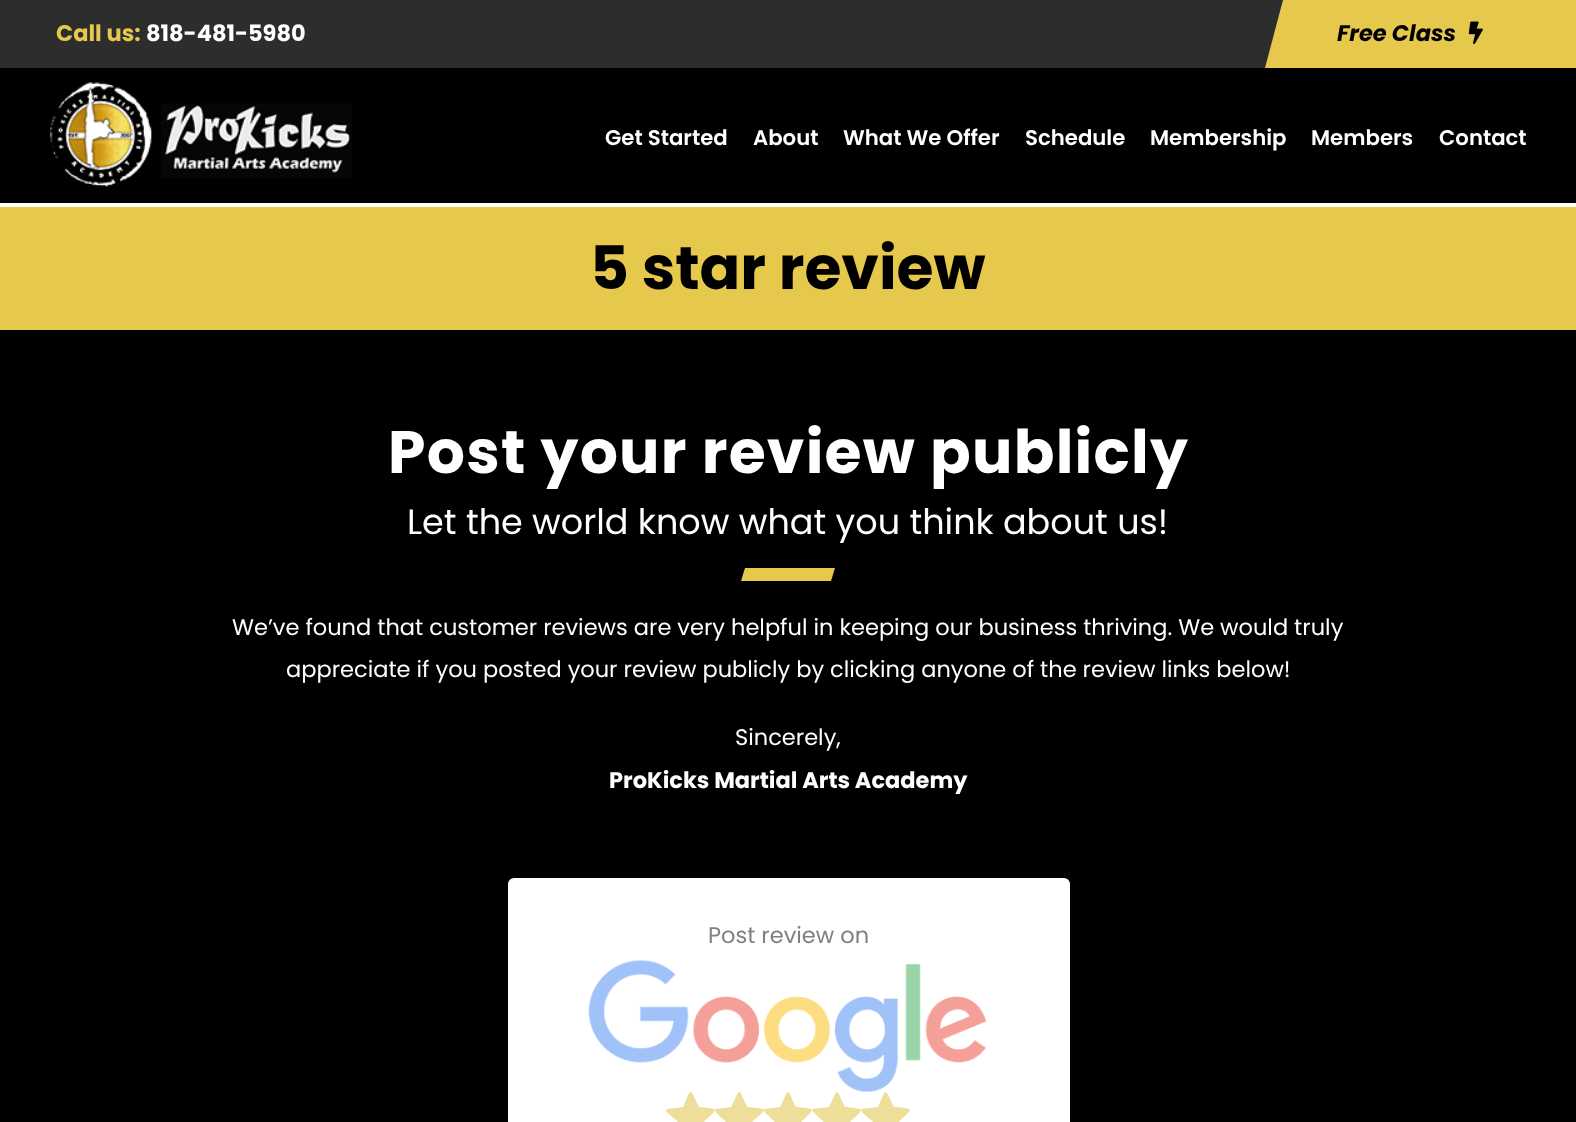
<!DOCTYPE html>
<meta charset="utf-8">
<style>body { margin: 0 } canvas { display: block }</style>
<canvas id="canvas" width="1576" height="1122"></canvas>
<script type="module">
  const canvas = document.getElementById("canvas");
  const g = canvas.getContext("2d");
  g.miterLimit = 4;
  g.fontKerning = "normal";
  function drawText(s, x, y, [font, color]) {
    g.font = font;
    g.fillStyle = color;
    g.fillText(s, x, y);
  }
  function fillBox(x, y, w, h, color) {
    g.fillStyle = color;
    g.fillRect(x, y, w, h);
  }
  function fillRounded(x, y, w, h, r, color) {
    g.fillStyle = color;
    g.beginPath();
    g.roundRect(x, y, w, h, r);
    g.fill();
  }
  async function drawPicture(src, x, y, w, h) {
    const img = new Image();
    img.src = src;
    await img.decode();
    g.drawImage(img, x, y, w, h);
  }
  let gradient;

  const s1 = ["bold 22.5px Poppins", "#E5C84C"];
  const s2 = ["bold 22.5px Poppins", "#FFFFFF"];
  const s3 = ["italic bold 22.5px Poppins", "#000000"];
  const s4 = ["600 21.25px Poppins", "#FFFFFF"];
  const s5 = ["bold 60px Poppins", "#000000"];
  const s6 = ["bold 60px Poppins", "#FFFFFF"];
  const s7 = ["35px Poppins", "#FFFFFF"];
  const s8 = ["22.5px Poppins", "#FFFFFF"];
  const s9 = ["22.5px Poppins", "#808080"];

  fillBox(0, 0, 1576, 1122, "#000000");
  fillBox(0, 0, 1283, 68, "#2D2D2D");
  drawText("Call us:", 56, 41, s1);
  drawText("818-481-5980", 146, 41, s2);
  gradient = g.createLinearGradient(-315, 34, 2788, 34);
  gradient.addColorStop(0, "#BC8D15");
  gradient.addColorStop(0.5, "#F2D857");
  gradient.addColorStop(0.5, "#E5C84C");
  gradient.addColorStop(1, "#E5C84C");
  g.fillStyle = gradient;
  g.beginPath();
  g.moveTo(1283, 0);
  g.lineTo(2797, 0);
  g.lineTo(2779, 68);
  g.lineTo(1265, 68);
  g.closePath();
  g.fill();
  drawText("Free Class", 1337, 41, s3);
  await drawPicture("pic1.png", 1468, 21, 15, 23);
  fillBox(0, 203, 1576, 4, "#FFFFFF");
  await drawPicture("pic2.png", 50, 82, 302, 105);
  drawText("Get Started", 605, 145, s4);
  drawText("About", 753, 145, s4);
  drawText("What We Offer", 843, 145, s4);
  drawText("Schedule", 1025, 145, s4);
  drawText("Membership", 1150, 145, s4);
  drawText("Members", 1311, 145, s4);
  drawText("Contact", 1439, 145, s4);
  fillBox(0, 207, 1576, 123, "#E5C84C");
  drawText("5 star review", 590, 289, s5);
  g.letterSpacing = "1.25px";
  drawText("Post your review publicly", 388, 473, s6);
  g.letterSpacing = "0px";
  drawText("Let the world know what you think about us!", 407, 534, s7);
  g.fillStyle = "#E5C84C";
  g.beginPath();
  g.moveTo(745, 568);
  g.lineTo(835, 568);
  g.lineTo(831, 581);
  g.lineTo(741, 581);
  g.closePath();
  g.fill();
  drawText("We’ve found that customer reviews are very helpful in keeping our business thriving. We would truly", 232, 635, s8);
  drawText("appreciate if you posted your review publicly by clicking anyone of the review links below!", 286, 677, s8);
  drawText("Sincerely,", 735, 745, s8);
  drawText("ProKicks Martial Arts Academy", 609, 788, s2);
  fillRounded(508, 878, 562, 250, 6, "#FFFFFF");
  drawText("Post review on", 708, 943, s9);
  await drawPicture("pic3.png", 588, 960, 399, 132);
  g.fillStyle = "#EDDF99";
  g.beginPath();
  g.moveTo(715, 1110);
  g.bezierCurveTo(715, 1112, 705, 1120, 704, 1122);
  g.bezierCurveTo(707, 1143, 710, 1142, 691, 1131);
  g.bezierCurveTo(671, 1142, 674, 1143, 678, 1122);
  g.bezierCurveTo(662, 1107, 660, 1110, 683, 1107);
  g.bezierCurveTo(692, 1087, 689, 1087, 699, 1107);
  g.bezierCurveTo(701, 1107, 715, 1108, 715, 1110);
  g.closePath();
  g.fill();
  g.beginPath();
  g.moveTo(764, 1110);
  g.bezierCurveTo(764, 1112, 754, 1120, 752, 1122);
  g.bezierCurveTo(756, 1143, 759, 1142, 739, 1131);
  g.bezierCurveTo(720, 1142, 723, 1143, 726, 1122);
  g.bezierCurveTo(711, 1107, 709, 1110, 731, 1107);
  g.bezierCurveTo(741, 1087, 738, 1087, 747, 1107);
  g.bezierCurveTo(750, 1107, 764, 1108, 764, 1110);
  g.closePath();
  g.fill();
  g.beginPath();
  g.moveTo(812, 1110);
  g.bezierCurveTo(812, 1112, 803, 1120, 801, 1122);
  g.bezierCurveTo(805, 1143, 808, 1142, 788, 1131);
  g.bezierCurveTo(768, 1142, 772, 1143, 775, 1122);
  g.bezierCurveTo(760, 1107, 758, 1110, 780, 1107);
  g.bezierCurveTo(790, 1087, 786, 1087, 796, 1107);
  g.bezierCurveTo(799, 1107, 812, 1108, 812, 1110);
  g.closePath();
  g.fill();
  g.beginPath();
  g.moveTo(861, 1110);
  g.bezierCurveTo(861, 1112, 852, 1120, 850, 1122);
  g.bezierCurveTo(853, 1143, 856, 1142, 837, 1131);
  g.bezierCurveTo(817, 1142, 820, 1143, 824, 1122);
  g.bezierCurveTo(808, 1107, 807, 1110, 829, 1107);
  g.bezierCurveTo(839, 1087, 835, 1087, 845, 1107);
  g.bezierCurveTo(847, 1107, 861, 1108, 861, 1110);
  g.closePath();
  g.fill();
  g.beginPath();
  g.moveTo(910, 1110);
  g.bezierCurveTo(910, 1112, 900, 1120, 899, 1122);
  g.bezierCurveTo(902, 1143, 905, 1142, 886, 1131);
  g.bezierCurveTo(866, 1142, 869, 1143, 873, 1122);
  g.bezierCurveTo(857, 1107, 855, 1110, 878, 1107);
  g.bezierCurveTo(887, 1087, 884, 1087, 894, 1107);
  g.bezierCurveTo(896, 1107, 910, 1108, 910, 1110);
  g.closePath();
  g.fill();
</script>
